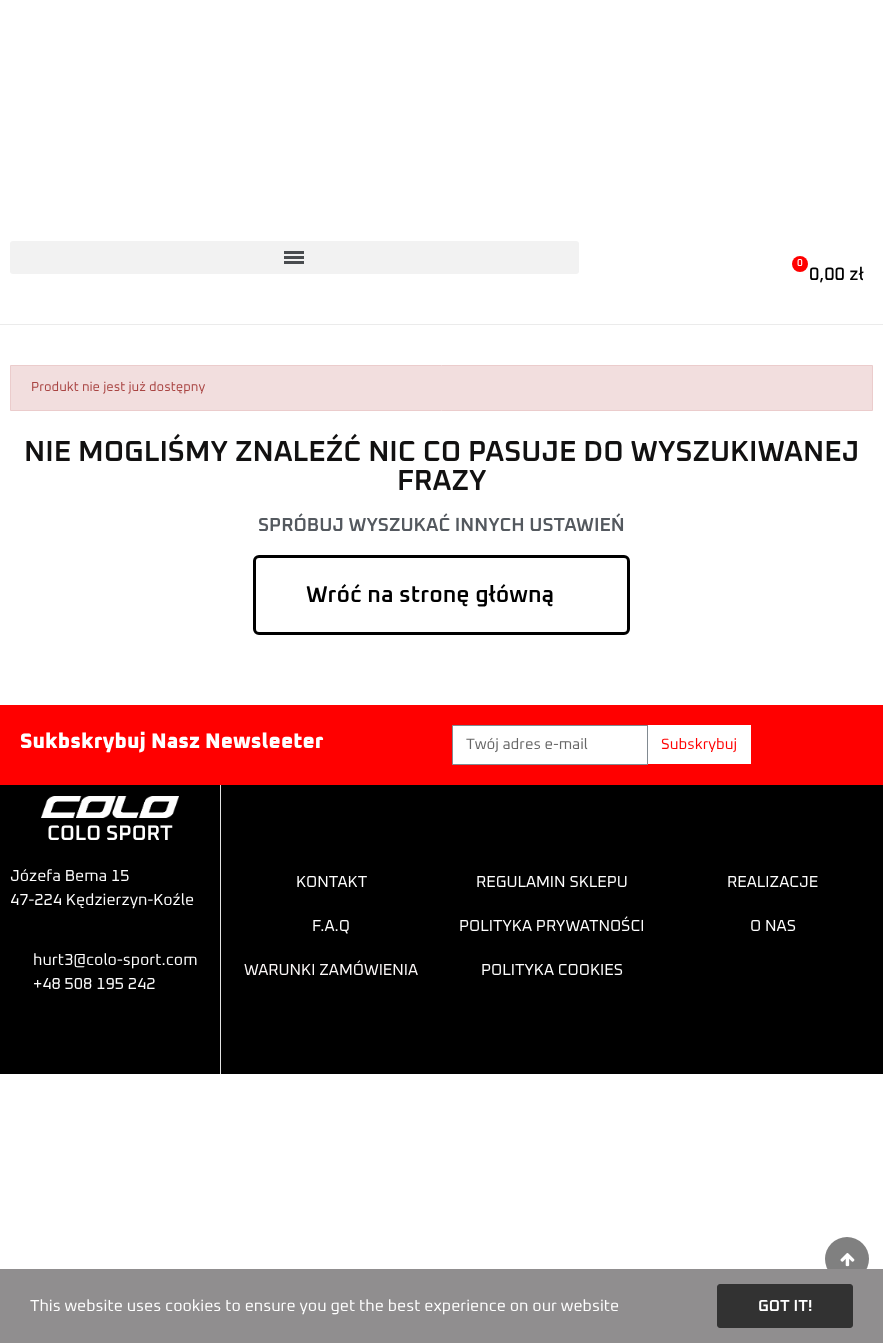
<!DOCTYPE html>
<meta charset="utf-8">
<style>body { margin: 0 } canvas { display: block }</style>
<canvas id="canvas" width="883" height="1343"></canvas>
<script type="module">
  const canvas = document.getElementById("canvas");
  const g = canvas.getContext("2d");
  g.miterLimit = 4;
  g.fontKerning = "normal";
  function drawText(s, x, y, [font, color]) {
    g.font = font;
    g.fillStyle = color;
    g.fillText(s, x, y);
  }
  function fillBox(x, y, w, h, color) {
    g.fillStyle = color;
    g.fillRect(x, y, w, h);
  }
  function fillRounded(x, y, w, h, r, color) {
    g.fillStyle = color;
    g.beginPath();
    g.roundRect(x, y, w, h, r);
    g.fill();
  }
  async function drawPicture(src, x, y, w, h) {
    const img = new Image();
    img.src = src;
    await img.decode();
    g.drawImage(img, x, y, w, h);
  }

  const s1 = ["500 10px Oxanium", "#FFFFFF"];
  const s2 = ["500 18px Oxanium", "#000000"];
  const s3 = ["13px Oxanium", "#A94442"];
  const s4 = ["600 29px Oxanium", "#121111"];
  const s5 = ["600 19px Oxanium", "#54595F"];
  const s6 = ["600 23px Oxanium", "#000000"];
  const s7 = ["800 21px Oxanium", "#FFFFFF"];
  const s8 = ["15px Oxanium", "#666666"];
  const s9 = ["15px Oxanium", "#FF0000"];
  const s10 = ["600 21px Oxanium", "#FFFFFF"];
  const s11 = ["16px Oxanium", "#FFFFFF"];
  const s12 = ["16px Oxanium", "#FDF9F9"];
  const s13 = ["600 16px Oxanium", "#FFFFFF"];

  fillBox(0, 0, 883, 1343, "#FFFFFF");
  fillBox(0, 324, 883, 1, "#EBEBEB");
  fillRounded(10, 241, 569, 33, 3, "#F2F2F2");
  fillBox(284, 256, 20, 3, "#494C4F");
  fillBox(284, 251, 20, 3, "#494C4F");
  fillBox(284, 261, 20, 3, "#494C4F");
  g.fillStyle = "#FF0000";
  g.beginPath();
  g.arc(800, 264, 8, 0, Math.PI * 2);
  g.fill();
  drawText("0", 797, 266, s1);
  drawText("0,00 zł", 809, 280, s2);
  g.fillStyle = "#F2DEDE";
  g.beginPath();
  g.rect(10.5, 365.5, 862, 45);
  g.fill();
  g.strokeStyle = "#EBCCCC";
  g.stroke();
  drawText("Produkt nie jest już dostępny", 31, 391, s3);
  drawText("NIE MOGLIŚMY ZNALEŹĆ NIC CO PASUJE DO WYSZUKIWANEJ", 24, 461, s4);
  drawText("FRAZY", 397, 490, s4);
  drawText("SPRÓBUJ WYSZUKAĆ INNYCH USTAWIEŃ", 258, 531, s5);
  g.beginPath();
  g.roundRect(254.5, 556.5, 374, 77, 4.5);
  g.strokeStyle = "#000000";
  g.lineWidth = 3;
  g.stroke();
  drawText("Wróć na stronę główną", 306, 602, s6);
  fillBox(0, 705, 883, 80, "#FF0000");
  drawText("Sukbskrybuj Nasz Newsleeter", 20, 748, s7);
  g.beginPath();
  g.rect(452.5, 725.5, 195, 39);
  g.fill();
  g.strokeStyle = "#818A91";
  g.lineWidth = 1;
  g.stroke();
  drawText("Twój adres e-mail", 466, 749, s8);
  fillBox(648, 725, 103, 39, "#FFFFFF");
  drawText("Subskrybuj", 661, 749, s9);
  fillBox(0, 785, 883, 289, "#000000");
  fillBox(220, 785, 1, 289, "#E3E3E3");
  await drawPicture("pic1.png", 41, 796, 138, 22);
  drawText("COLO SPORT", 47, 840, s10);
  drawText("Józefa Bema 15", 10, 881, s11);
  drawText("47-224 Kędzierzyn-Koźle", 10, 905, s11);
  drawText("hurt3@colo-sport.com", 33, 965, s11);
  drawText("+48 508 195 242", 33, 989, s11);
  drawText("KONTAKT", 296, 887, s11);
  drawText("F.A.Q", 312, 931, s11);
  drawText("WARUNKI ZAMÓWIENIA", 244, 975, s12);
  drawText("REGULAMIN SKLEPU", 476, 887, s11);
  drawText("POLITYKA PRYWATNOŚCI", 459, 931, s11);
  drawText("POLITYKA COOKIES", 481, 975, s11);
  drawText("REALIZACJE", 727, 887, s11);
  drawText("O NAS", 750, 931, s11);
  g.fillStyle = "#808080";
  g.beginPath();
  g.arc(847, 1259, 22, 0, Math.PI * 2);
  g.fill();
  await drawPicture("pic2.png", 840, 1253, 15, 14);
  fillBox(0, 1269, 883, 74, "#908E8F");
  drawText("This website uses cookies to ensure you get the best experience on our website", 30, 1311, s11);
  g.fillStyle = "#323232";
  g.beginPath();
  g.roundRect(717.5, 1284.5, 135, 43, 2.5);
  g.fill();
  g.strokeStyle = "#323232";
  g.stroke();
  drawText("GOT IT!", 758, 1311, s13);
</script>
